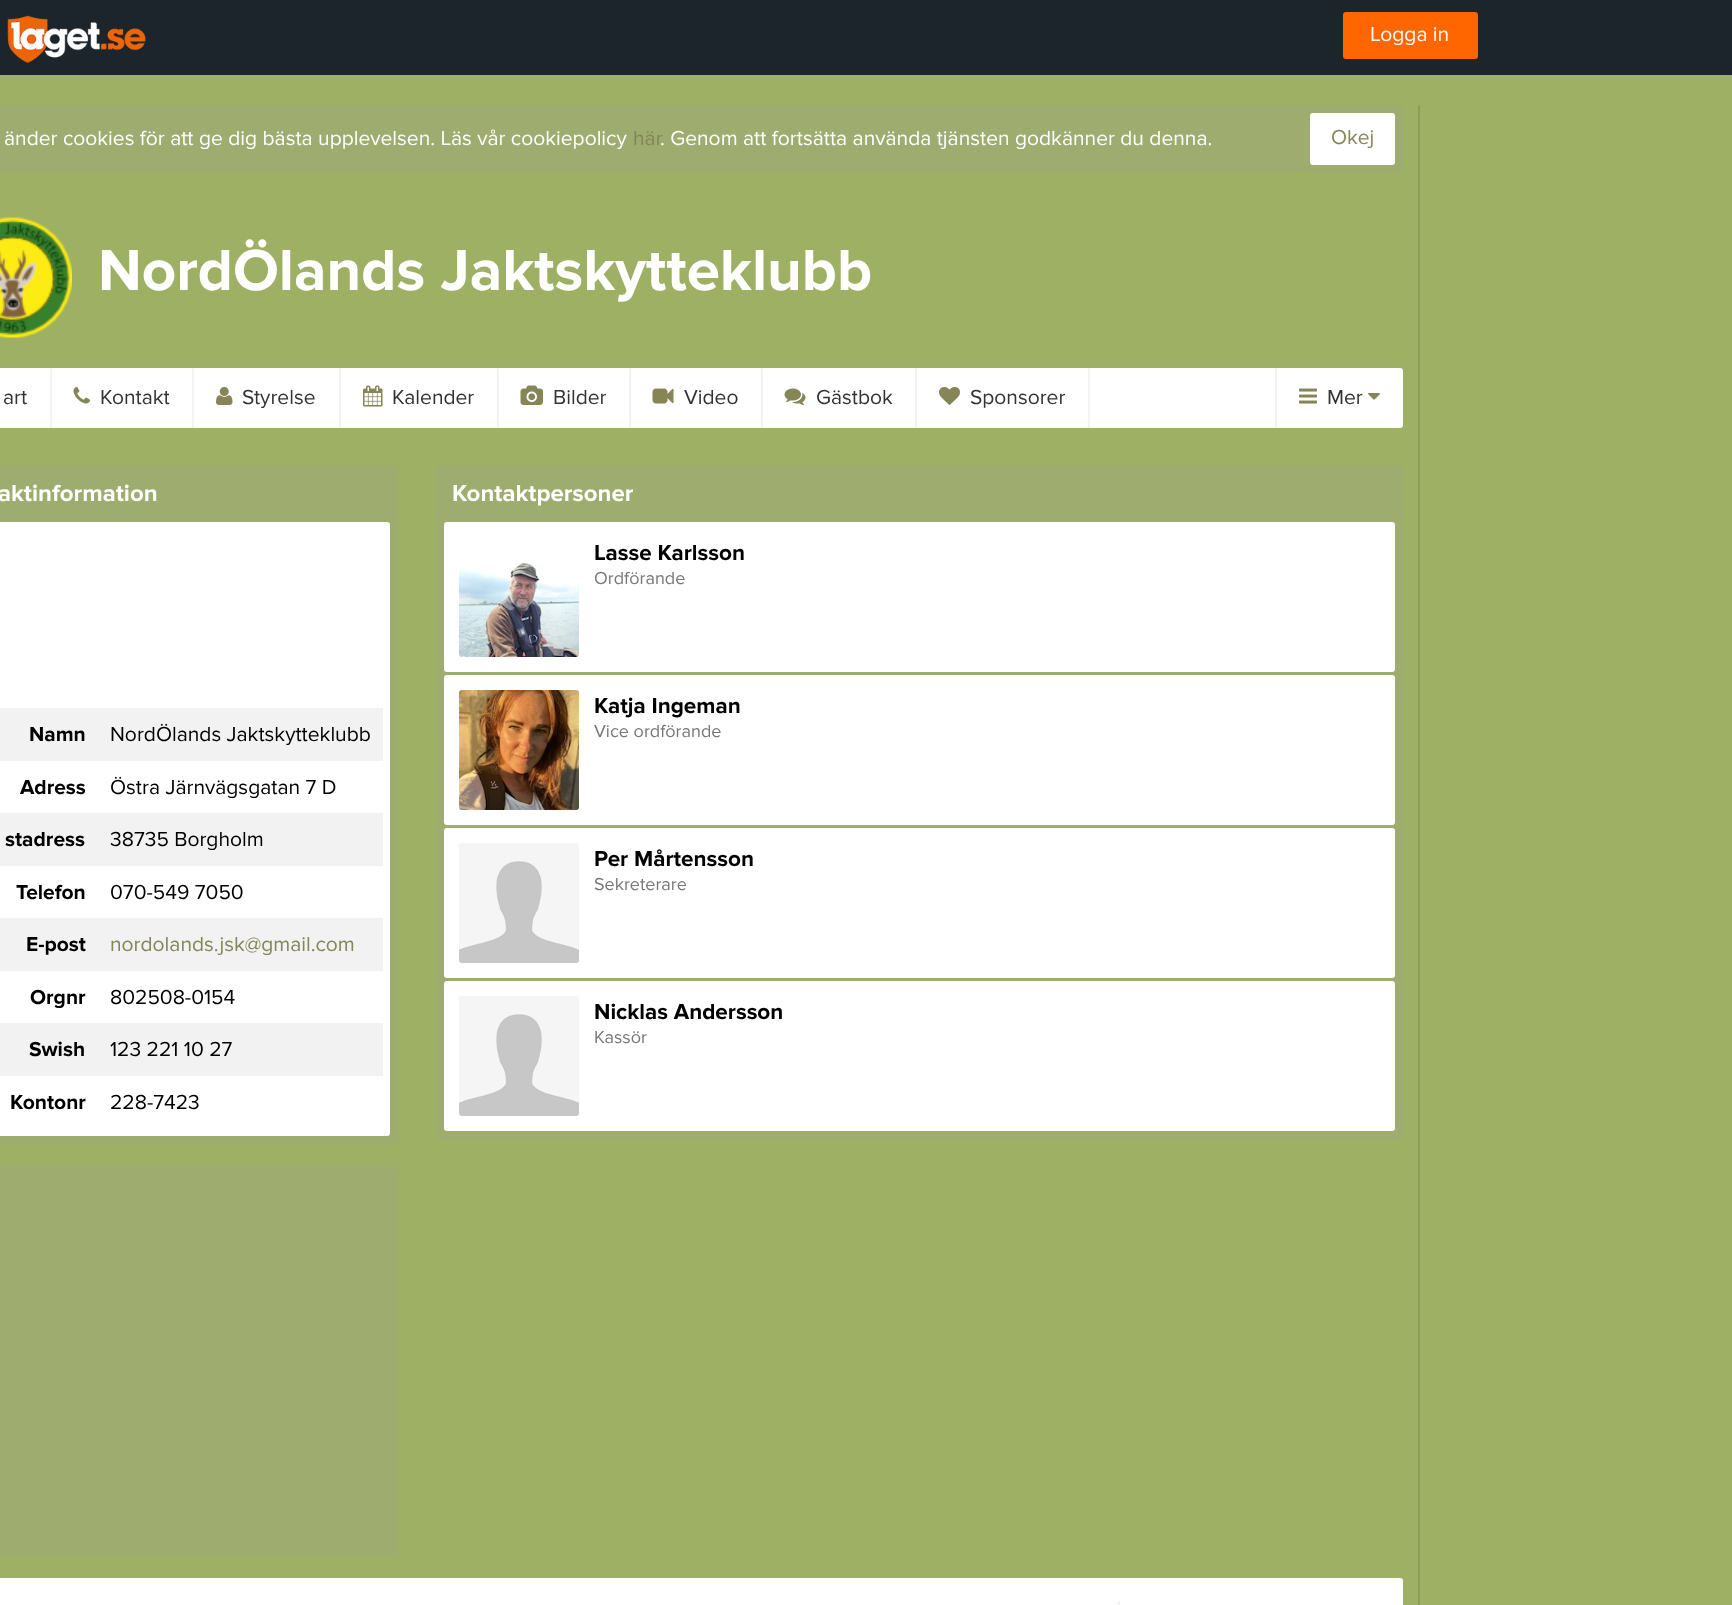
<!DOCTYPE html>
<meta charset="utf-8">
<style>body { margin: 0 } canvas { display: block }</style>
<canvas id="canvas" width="1732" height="1605"></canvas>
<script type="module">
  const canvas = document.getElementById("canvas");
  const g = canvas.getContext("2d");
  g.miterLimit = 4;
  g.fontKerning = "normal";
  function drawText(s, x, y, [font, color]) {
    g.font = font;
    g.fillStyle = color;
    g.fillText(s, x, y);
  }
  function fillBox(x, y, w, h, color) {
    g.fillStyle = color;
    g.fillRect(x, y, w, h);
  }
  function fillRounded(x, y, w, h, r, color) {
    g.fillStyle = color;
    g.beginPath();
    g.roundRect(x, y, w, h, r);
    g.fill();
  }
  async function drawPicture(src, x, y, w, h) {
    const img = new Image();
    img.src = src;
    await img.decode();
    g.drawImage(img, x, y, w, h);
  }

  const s1 = ["21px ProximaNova", "#FFFFFF"];
  const s2 = ["21px ProximaNova", "#858558"];
  const s3 = ["bold 60px ProximaNova", "#FFFFFF"];
  const s4 = ["21px ProximaNova", "#333333"];
  const s5 = ["bold 24px ProximaNova", "#FFFFFF"];
  const s6 = ["bold 21px ProximaNova", "#000000"];
  const s7 = ["21px ProximaNova", "#000000"];
  const s8 = ["bold 22.5px ProximaNova", "#000000"];
  const s9 = ["18px ProximaNova", "#777777"];

  fillBox(0, 0, 1732, 1605, "#9EB063");
  fillBox(0, 0, 1732, 75, "#1C252B");
  await drawPicture("pic1.png", 7, 15, 139, 48);
  fillRounded(1343, 12, 135, 47, 3, "#FF6600");
  drawText("Logga in", 1370, 41, s1);
  fillRounded(-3, 105, 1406, 68, 3, "#9EAC6F");
  drawText("änder cookies för att ge dig bästa upplevelsen. Läs vår cookiepolicy", 4, 145, s1);
  drawText("här", 633, 145, s2);
  drawText(". Genom att fortsätta använda tjänsten godkänner du denna.", 660, 145, s1);
  fillRounded(1310, 113, 85, 52, 3, "#FFFFFF");
  drawText("Okej", 1331, 144, s2);
  await drawPicture("pic2.png", 0, 217, 72, 121);
  drawText("NordÖlands Jaktskytteklubb", 98, 290, s3);
  fillRounded(-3, 368, 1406, 60, 3, "#FFFFFF");
  fillBox(50, 368, 2, 60, "#F3F3F3");
  drawText("art", 3, 404, s4);
  fillBox(192, 368, 2, 60, "#F3F3F3");
  await drawPicture("pic3.png", 73, 387, 17, 17);
  drawText("Kontakt", 100, 404, s4);
  fillBox(339, 368, 2, 60, "#F3F3F3");
  await drawPicture("pic4.png", 216, 387, 17, 18);
  drawText("Styrelse", 242, 404, s4);
  fillBox(497, 368, 2, 60, "#F3F3F3");
  await drawPicture("pic5.png", 363, 385, 20, 22);
  drawText("Kalender", 392, 404, s4);
  fillBox(629, 368, 2, 60, "#F3F3F3");
  await drawPicture("pic6.png", 520, 385, 23, 20);
  drawText("Bilder", 553, 404, s4);
  fillBox(761, 368, 2, 60, "#F3F3F3");
  await drawPicture("pic7.png", 652, 388, 22, 16);
  drawText("Video", 684, 404, s4);
  fillBox(915, 368, 2, 60, "#F3F3F3");
  await drawPicture("pic8.png", 784, 388, 22, 17);
  drawText("Gästbok", 816, 404, s4);
  fillBox(1088, 368, 2, 60, "#F3F3F3");
  await drawPicture("pic9.png", 939, 387, 21, 18);
  drawText("Sponsorer", 970, 404, s4);
  fillBox(1275, 368, 2, 60, "#F3F3F3");
  await drawPicture("pic10.png", 1299, 388, 18, 16);
  drawText("Mer", 1327, 404, s4);
  await drawPicture("pic11.png", 1368, 393, 12, 7);
  fillRounded(-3, 465, 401, 678, 3, "#9EAC6F");
  drawText("aktinformation", -2, 501, s5);
  fillRounded(-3, 522, 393, 614, 3, "#FFFFFF");
  fillBox(0, 708, 383, 53, "#F2F2F2");
  drawText("Namn", 29, 741, s6);
  drawText("NordÖlands Jaktskytteklubb", 110, 741, s7);
  drawText("Adress", 20, 794, s6);
  drawText("Östra Järnvägsgatan 7 D", 110, 794, s7);
  fillBox(0, 813, 383, 53, "#F2F2F2");
  drawText("stadress", 5, 846, s6);
  drawText("38735 Borgholm", 110, 846, s7);
  drawText("Telefon", 16, 899, s6);
  drawText("070-549 7050", 110, 899, s7);
  fillBox(0, 918, 383, 53, "#F2F2F2");
  drawText("E-post", 26, 951, s6);
  drawText("nordolands.jsk@gmail.com", 110, 951, s2);
  drawText("Orgnr", 30, 1004, s6);
  drawText("802508-0154", 110, 1004, s7);
  fillBox(0, 1023, 383, 53, "#F2F2F2");
  drawText("Swish", 29, 1056, s6);
  drawText("123 221 10 27", 110, 1056, s7);
  drawText("Kontonr", 10, 1109, s6);
  drawText("228-7423", 110, 1109, s7);
  fillRounded(-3, 1166, 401, 390, 3, "#9EAC6F");
  fillRounded(437, 465, 966, 674, 3, "#9FAC6F");
  drawText("Kontaktpersoner", 452, 501, s5);
  fillRounded(444, 522, 951, 150, 3, "#FFFFFF");
  drawText("Lasse Karlsson", 594, 560, s8);
  await drawPicture("pic12.png", 459, 562, 120, 95);
  drawText("Ordförande", 594, 584, s9);
  fillRounded(444, 675, 951, 150, 3, "#FFFFFF");
  await drawPicture("pic13.png", 459, 690, 120, 120);
  drawText("Katja Ingeman", 594, 713, s8);
  drawText("Vice ordförande", 594, 737, s9);
  fillRounded(444, 828, 951, 150, 3, "#FFFFFF");
  await drawPicture("pic14.png", 459, 843, 120, 120);
  drawText("Per Mårtensson", 594, 866, s8);
  drawText("Sekreterare", 594, 890, s9);
  fillRounded(444, 981, 951, 150, 3, "#FFFFFF");
  await drawPicture("pic14.png", 459, 996, 120, 120);
  drawText("Nicklas Andersson", 594, 1019, s8);
  drawText("Kassör", 594, 1043, s9);
  fillRounded(-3, 1578, 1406, 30, 3, "#FFFFFF");
  fillBox(1118, 1601, 2, 4, "#F3F3F3");
  fillBox(1418, 105, 2, 1500, "#8E9E59");
</script>
